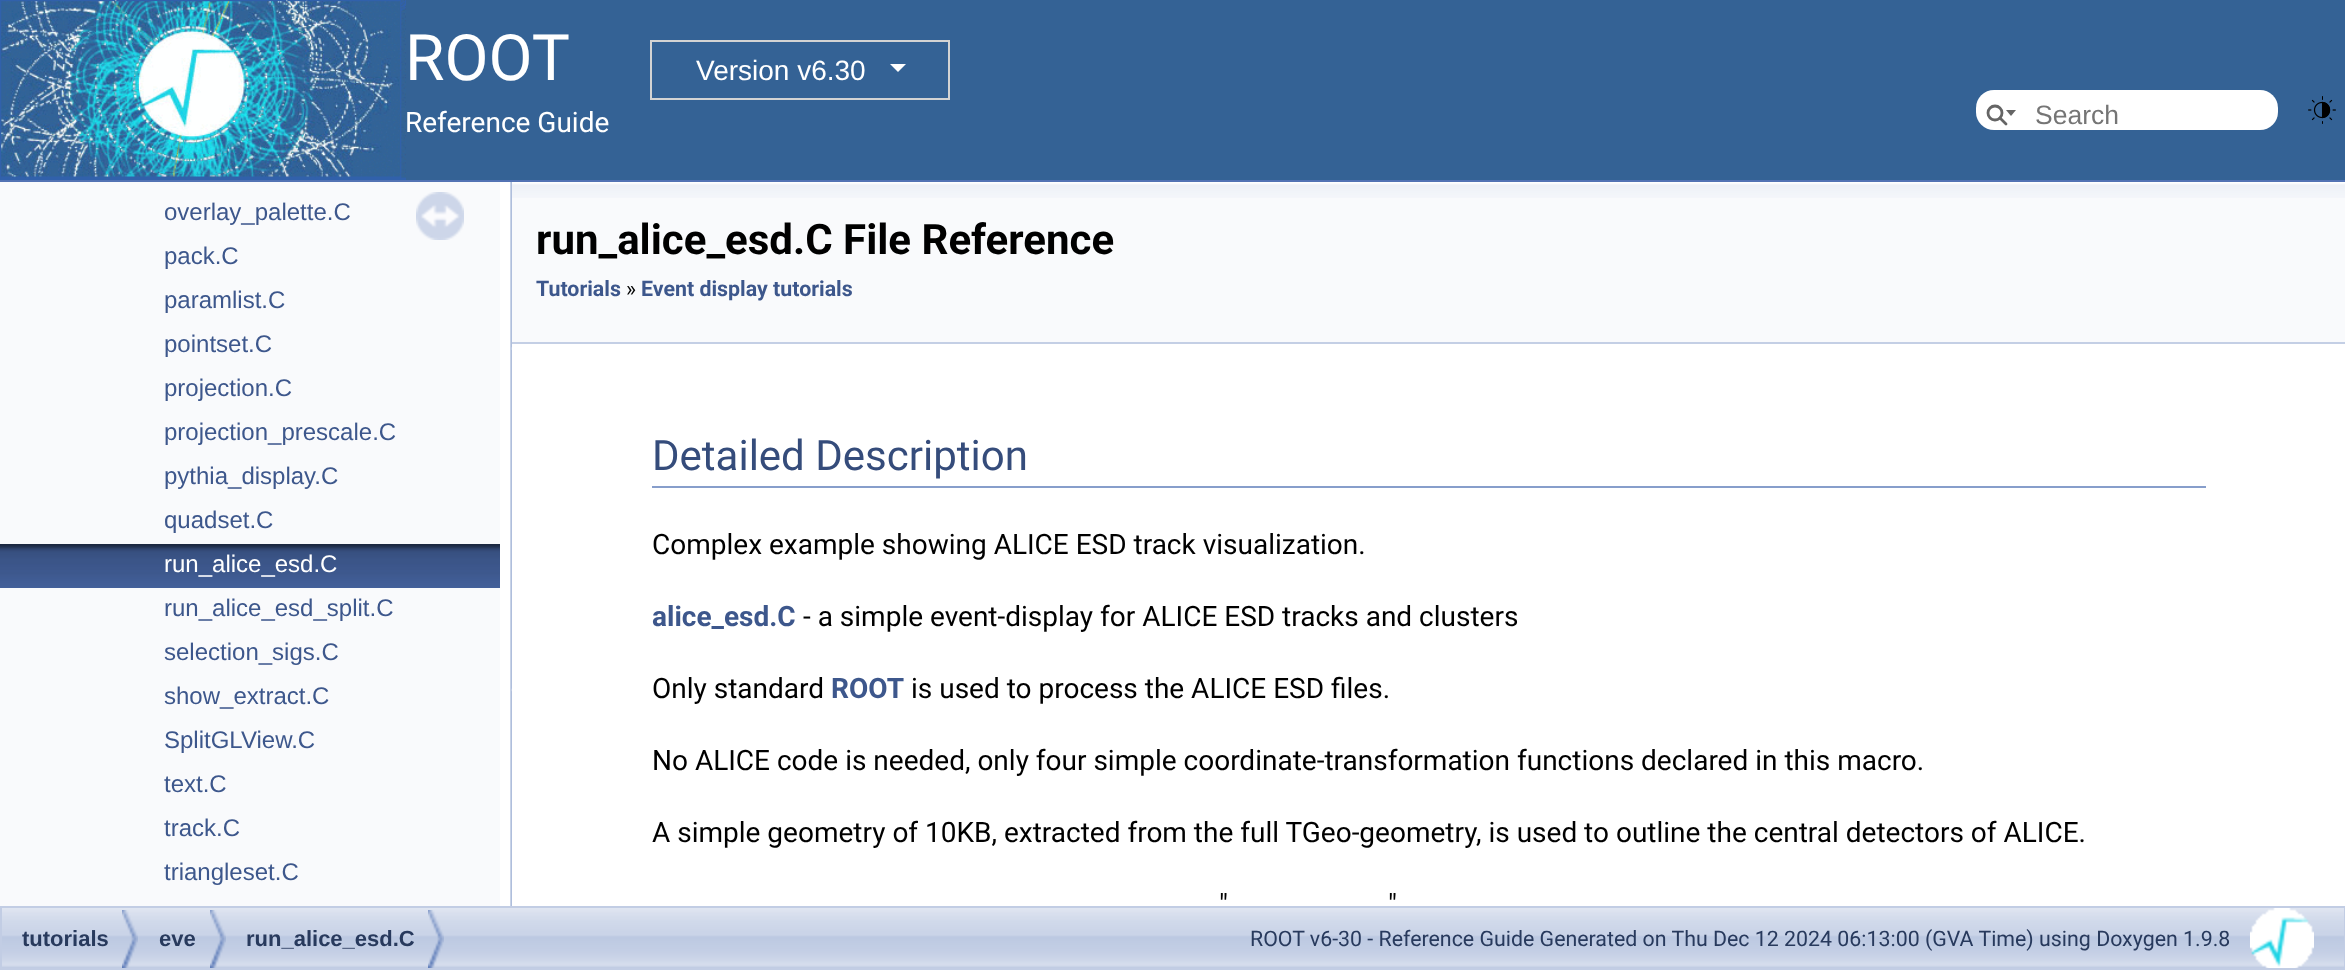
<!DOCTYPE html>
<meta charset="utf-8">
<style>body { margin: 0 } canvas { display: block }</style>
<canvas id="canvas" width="2345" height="970"></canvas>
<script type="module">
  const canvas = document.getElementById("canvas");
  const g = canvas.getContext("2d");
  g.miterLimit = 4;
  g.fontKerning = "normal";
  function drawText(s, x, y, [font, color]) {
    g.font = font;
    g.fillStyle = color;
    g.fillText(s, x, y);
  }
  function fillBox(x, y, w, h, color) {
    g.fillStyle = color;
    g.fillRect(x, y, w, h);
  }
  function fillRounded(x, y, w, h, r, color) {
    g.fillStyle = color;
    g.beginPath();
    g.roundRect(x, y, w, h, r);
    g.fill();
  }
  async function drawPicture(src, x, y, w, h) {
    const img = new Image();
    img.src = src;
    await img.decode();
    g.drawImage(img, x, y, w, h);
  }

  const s1 = ["64px Roboto", "#FFFFFF"];
  const s2 = ["28px Liberation Sans", "#FFFFFF"];
  const s3 = ["28px Roboto", "#FFFFFF"];
  const s4 = ["26.5px Liberation Sans", "#757575"];
  const s5 = ["24px Liberation Sans", "#3D578C"];
  const s6 = ["24px Liberation Sans", "#FFFFFF"];
  const s7 = ["bold 42px Roboto", "#000000"];
  const s8 = ["bold 21.35px Roboto", "#3D578C"];
  const s9 = ["21.35px Roboto", "#000000"];
  const s10 = ["42px Roboto", "#354C7B"];
  const s11 = ["28px Roboto", "#000000"];
  const s12 = ["bold 28px Roboto", "#3D578C"];
  const s13 = ["bold 22px Liberation Sans", "#283A5D"];
  const s14 = ["21.35px Roboto", "#283A5D"];

  fillBox(0, 0, 2345, 970, "#FFFFFF");
  fillBox(0, 180, 2345, 2, "#5373B4");
  fillBox(406, 0, 1939, 180, "#346295");
  await drawPicture("pic1.png", 0, 0, 406, 180);
  drawText("ROOT", 405, 80, s1);
  g.strokeStyle = "#D3D3D3";
  g.lineWidth = 2;
  g.strokeRect(651, 41, 298, 58);
  drawText("Version v6.30", 696, 80, s2);
  g.beginPath();
  g.moveTo(890, 64);
  g.lineTo(906, 64);
  g.lineTo(898, 72);
  g.closePath();
  g.fill();
  drawText("Reference Guide", 405, 132, s3);
  fillRounded(1976, 90, 302, 40, 18, "#FFFFFF");
  g.beginPath();
  g.arc(1995, 113, 7, 0, Math.PI * 2);
  g.strokeStyle = "#656565";
  g.lineWidth = 2.8;
  g.stroke();
  g.fillStyle = "#656565";
  g.beginPath();
  g.moveTo(2006, 110);
  g.lineTo(2011, 116);
  g.lineTo(2016, 110);
  g.closePath();
  g.fill();
  g.beginPath();
  g.moveTo(2000, 118);
  g.lineTo(2006, 124);
  g.lineCap = "round";
  g.stroke();
  drawText("Search", 2035, 124, s4);
  await drawPicture("pic2.png", 2308, 96, 28, 28);
  fillBox(0, 182, 500, 724, "#F9FAFC");
  drawText("overlay_palette.C", 164, 220, s5);
  drawText("pack.C", 164, 264, s5);
  drawText("paramlist.C", 164, 308, s5);
  drawText("pointset.C", 164, 352, s5);
  drawText("projection.C", 164, 396, s5);
  drawText("projection_prescale.C", 164, 440, s5);
  drawText("pythia_display.C", 164, 484, s5);
  drawText("quadset.C", 164, 528, s5);
  await drawPicture("pic3.png", 0, 544, 500, 44);
  drawText("run_alice_esd.C", 164, 572, s6);
  drawText("run_alice_esd_split.C", 164, 616, s5);
  drawText("selection_sigs.C", 164, 660, s5);
  drawText("show_extract.C", 164, 704, s5);
  drawText("SplitGLView.C", 164, 748, s5);
  drawText("text.C", 164, 792, s5);
  drawText("track.C", 164, 836, s5);
  drawText("triangleset.C", 164, 880, s5);
  await drawPicture("pic4.png", 416, 192, 48, 48);
  await drawPicture("pic5.png", 510, 182, 2, 724);
  fillBox(512, 198, 1833, 144, "#F9FAFC");
  await drawPicture("pic6.png", 512, 182, 1833, 16);
  fillBox(512, 342, 1833, 2, "#C4CFE5");
  drawText("run_alice_esd.C File Reference", 536, 254, s7);
  drawText("Tutorials", 536, 296, s8);
  drawText("»", 626, 296, s9);
  drawText("Event display tutorials", 641, 296, s8);
  fillBox(652, 486, 1554, 2, "#879ECB");
  drawText("Detailed Description", 652, 470, s10);
  drawText("Complex example showing ALICE ESD track visualization.", 652, 554, s11);
  drawText("alice_esd.C", 652, 626, s12);
  drawText("- a simple event-display for ALICE ESD tracks and clusters", 803, 626, s11);
  drawText("Only standard", 652, 698, s11);
  drawText("ROOT", 831, 698, s12);
  drawText("is used to process the ALICE ESD files.", 911, 698, s11);
  drawText("No ALICE code is needed, only four simple coordinate-transformation functions declared in this macro.", 652, 770, s11);
  drawText("A simple geometry of 10KB, extracted from the full TGeo-geometry, is used to outline the central detectors of ALICE.", 652, 842, s11);
  drawText("\"", 1219, 914, s11);
  drawText("\"", 1388, 914, s11);
  await drawPicture("pic7.png", 2, 908, 2342, 60);
  g.strokeStyle = "#C2CDE4";
  g.lineWidth = 2;
  g.strokeRect(1, 907, 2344, 62);
  await drawPicture("pic8.png", 122, 910, 16, 58);
  drawText("tutorials", 22, 946, s13);
  await drawPicture("pic8.png", 210, 910, 16, 58);
  drawText("eve", 159, 946, s13);
  await drawPicture("pic8.png", 428, 910, 16, 58);
  drawText("run_alice_esd.C", 246, 946, s13);
  drawText("ROOT v6-30 - Reference Guide Generated on Thu Dec 12 2024 06:13:00 (GVA Time) using Doxygen 1.9.8", 1250, 946, s14);
  await drawPicture("pic9.png", 2250, 908, 64, 60);
</script>
